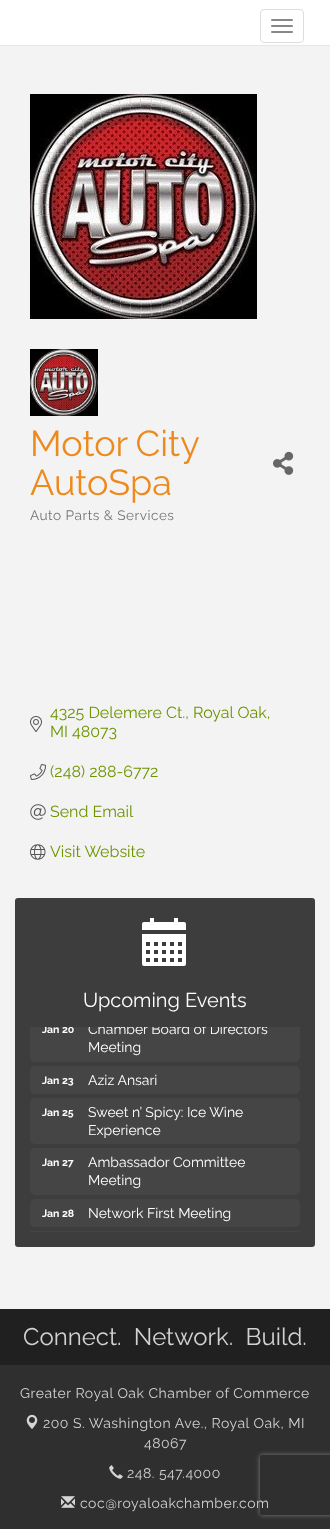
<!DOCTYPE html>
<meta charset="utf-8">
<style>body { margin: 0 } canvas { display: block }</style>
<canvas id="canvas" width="330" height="1529"></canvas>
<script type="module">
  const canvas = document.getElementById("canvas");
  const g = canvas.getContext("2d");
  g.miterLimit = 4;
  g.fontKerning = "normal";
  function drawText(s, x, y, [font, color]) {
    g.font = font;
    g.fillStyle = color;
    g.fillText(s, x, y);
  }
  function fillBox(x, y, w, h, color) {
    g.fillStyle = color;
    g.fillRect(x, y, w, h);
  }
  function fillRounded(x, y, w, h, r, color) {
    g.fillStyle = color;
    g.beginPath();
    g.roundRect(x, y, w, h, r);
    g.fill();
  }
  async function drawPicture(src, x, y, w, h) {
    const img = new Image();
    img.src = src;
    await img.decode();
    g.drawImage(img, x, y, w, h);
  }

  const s1 = ["36px Raleway", "#EE8A1D"];
  const s2 = ["13.6px Raleway", "#757575"];
  const s3 = ["16px Raleway", "#6D9400"];
  const s4 = ["20px Raleway", "#FFFFFF"];
  const s5 = ["bold 10.5px Raleway", "#FFFFFF"];
  const s6 = ["14px Raleway", "#FFFFFF"];
  const s7 = ["24px Raleway", "#D2D2D2"];
  const s8 = ["14px Raleway", "#D2D2D2"];

  fillBox(0, 0, 330, 1529, "#F3F3F3");
  fillBox(0, 0, 330, 45, "#FFFFFF");
  fillBox(0, 45, 330, 1, "#E6E6E6");
  g.beginPath();
  g.roundRect(260.5, 9.5, 43, 33, 3.5);
  g.strokeStyle = "#DDDDDD";
  g.stroke();
  fillRounded(271, 19, 22, 2, 1, "#888888");
  fillRounded(271, 25, 22, 2, 1, "#888888");
  fillRounded(271, 31, 22, 2, 1, "#888888");
  await drawPicture("pic1.png", 30, 94, 227, 225);
  await drawPicture("pic2.png", 30, 349, 68, 67);
  g.wordSpacing = "-1px";
  drawText("Motor City", 30, 456, s1);
  g.wordSpacing = "0px";
  drawText("AutoSpa", 30, 495, s1);
  await drawPicture("pic3.png", 273, 451, 21, 24);
  g.letterSpacing = "0.5px";
  drawText("Auto Parts & Services", 30, 520, s2);
  g.letterSpacing = "0px";
  drawText("4325 Delemere Ct., Royal Oak,", 50, 718, s3);
  await drawPicture("pic4.png", 30, 716, 12, 16);
  drawText("MI 48073", 50, 737, s3);
  await drawPicture("pic5.png", 30, 764, 16, 16);
  drawText("(248) 288-6772", 50, 777, s3);
  await drawPicture("pic6.png", 30, 804, 16, 16);
  drawText("Send Email", 50, 817, s3);
  await drawPicture("pic7.png", 30, 844, 16, 16);
  drawText("Visit Website", 50, 857, s3);
  g.fillStyle = "#3D3D3D";
  g.beginPath();
  g.roundRect(15, 898, 300, 114, [3, 3, 0, 0]);
  g.fill();
  await drawPicture("pic8.png", 142, 918, 44, 48);
  drawText("Upcoming Events", 83, 1007, s4);
  g.fillStyle = "#3D3D3D";
  g.beginPath();
  g.roundRect(15, 1012, 300, 235, [0, 0, 3, 3]);
  g.fill();
  g.fillStyle = "#454545";
  g.beginPath();
  g.roundRect(30, 1027, 270, 35, [0, 0, 5, 5]);
  g.fill();
  g.save();
  g.beginPath();
  g.rect(30, 1027, 270, 205);
  g.clip();
  drawText("Jan 20", 42, 1033, s5);
  drawText("Chamber Board of Directors", 88, 1034, s6);
  g.restore();
  drawText("Meeting", 88, 1052, s6);
  fillRounded(30, 1066, 270, 28, 5, "#454545");
  drawText("Jan 23", 42, 1084, s5);
  drawText("Aziz Ansari", 88, 1085, s6);
  fillRounded(30, 1098, 270, 46, 5, "#454545");
  drawText("Jan 25", 42, 1116, s5);
  drawText("Sweet n’ Spicy: Ice Wine", 88, 1117, s6);
  drawText("Experience", 88, 1135, s6);
  fillRounded(30, 1148, 270, 47, 5, "#454545");
  drawText("Jan 27", 42, 1166, s5);
  drawText("Ambassador Committee", 88, 1167, s6);
  drawText("Meeting", 88, 1185, s6);
  fillRounded(30, 1199, 270, 28, 5, "#454545");
  drawText("Jan 28", 42, 1217, s5);
  drawText("Network First Meeting", 88, 1218, s6);
  g.fillStyle = "#454545";
  g.beginPath();
  g.roundRect(30, 1231, 270, 1, [5, 5, 0, 0]);
  g.fill();
  fillBox(0, 1309, 330, 56, "#202020");
  drawText("Connect.  Network.  Build.", 23, 1345, s7);
  fillBox(0, 1365, 330, 164, "#2F2F2F");
  g.letterSpacing = "0.5px";
  drawText("Greater Royal Oak Chamber of Commerce", 20, 1398, s8);
  await drawPicture("pic9.png", 26, 1414, 12, 15);
  drawText("200 S. Washington Ave., Royal Oak, MI", 43, 1428, s8);
  drawText("48067", 144, 1448, s8);
  await drawPicture("pic10.png", 109, 1465, 14, 14);
  drawText("248. 547.4000", 127, 1478, s8);
  await drawPicture("pic11.png", 61, 1496, 14, 12);
  drawText("coc@royaloakchamber.com", 80, 1508, s8);
  g.save();
  g.beginPath();
  g.moveTo(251, 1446);
  g.lineTo(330, 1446);
  g.lineTo(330, 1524);
  g.lineTo(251, 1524);
  g.closePath();
  g.moveTo(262, 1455);
  g.lineTo(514, 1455);
  g.bezierCurveTo(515, 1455, 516, 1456, 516, 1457);
  g.lineTo(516, 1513);
  g.bezierCurveTo(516, 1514, 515, 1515, 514, 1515);
  g.lineTo(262, 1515);
  g.bezierCurveTo(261, 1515, 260, 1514, 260, 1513);
  g.lineTo(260, 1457);
  g.bezierCurveTo(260, 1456, 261, 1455, 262, 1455);
  g.closePath();
  g.clip("evenodd");
  g.fillStyle = "#808080";
  g.filter = "blur(2.5px)";
  g.beginPath();
  g.roundRect(260, 1455, 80, 60, 2);
  g.fill();
  g.filter = "none";
  g.restore();
</script>
